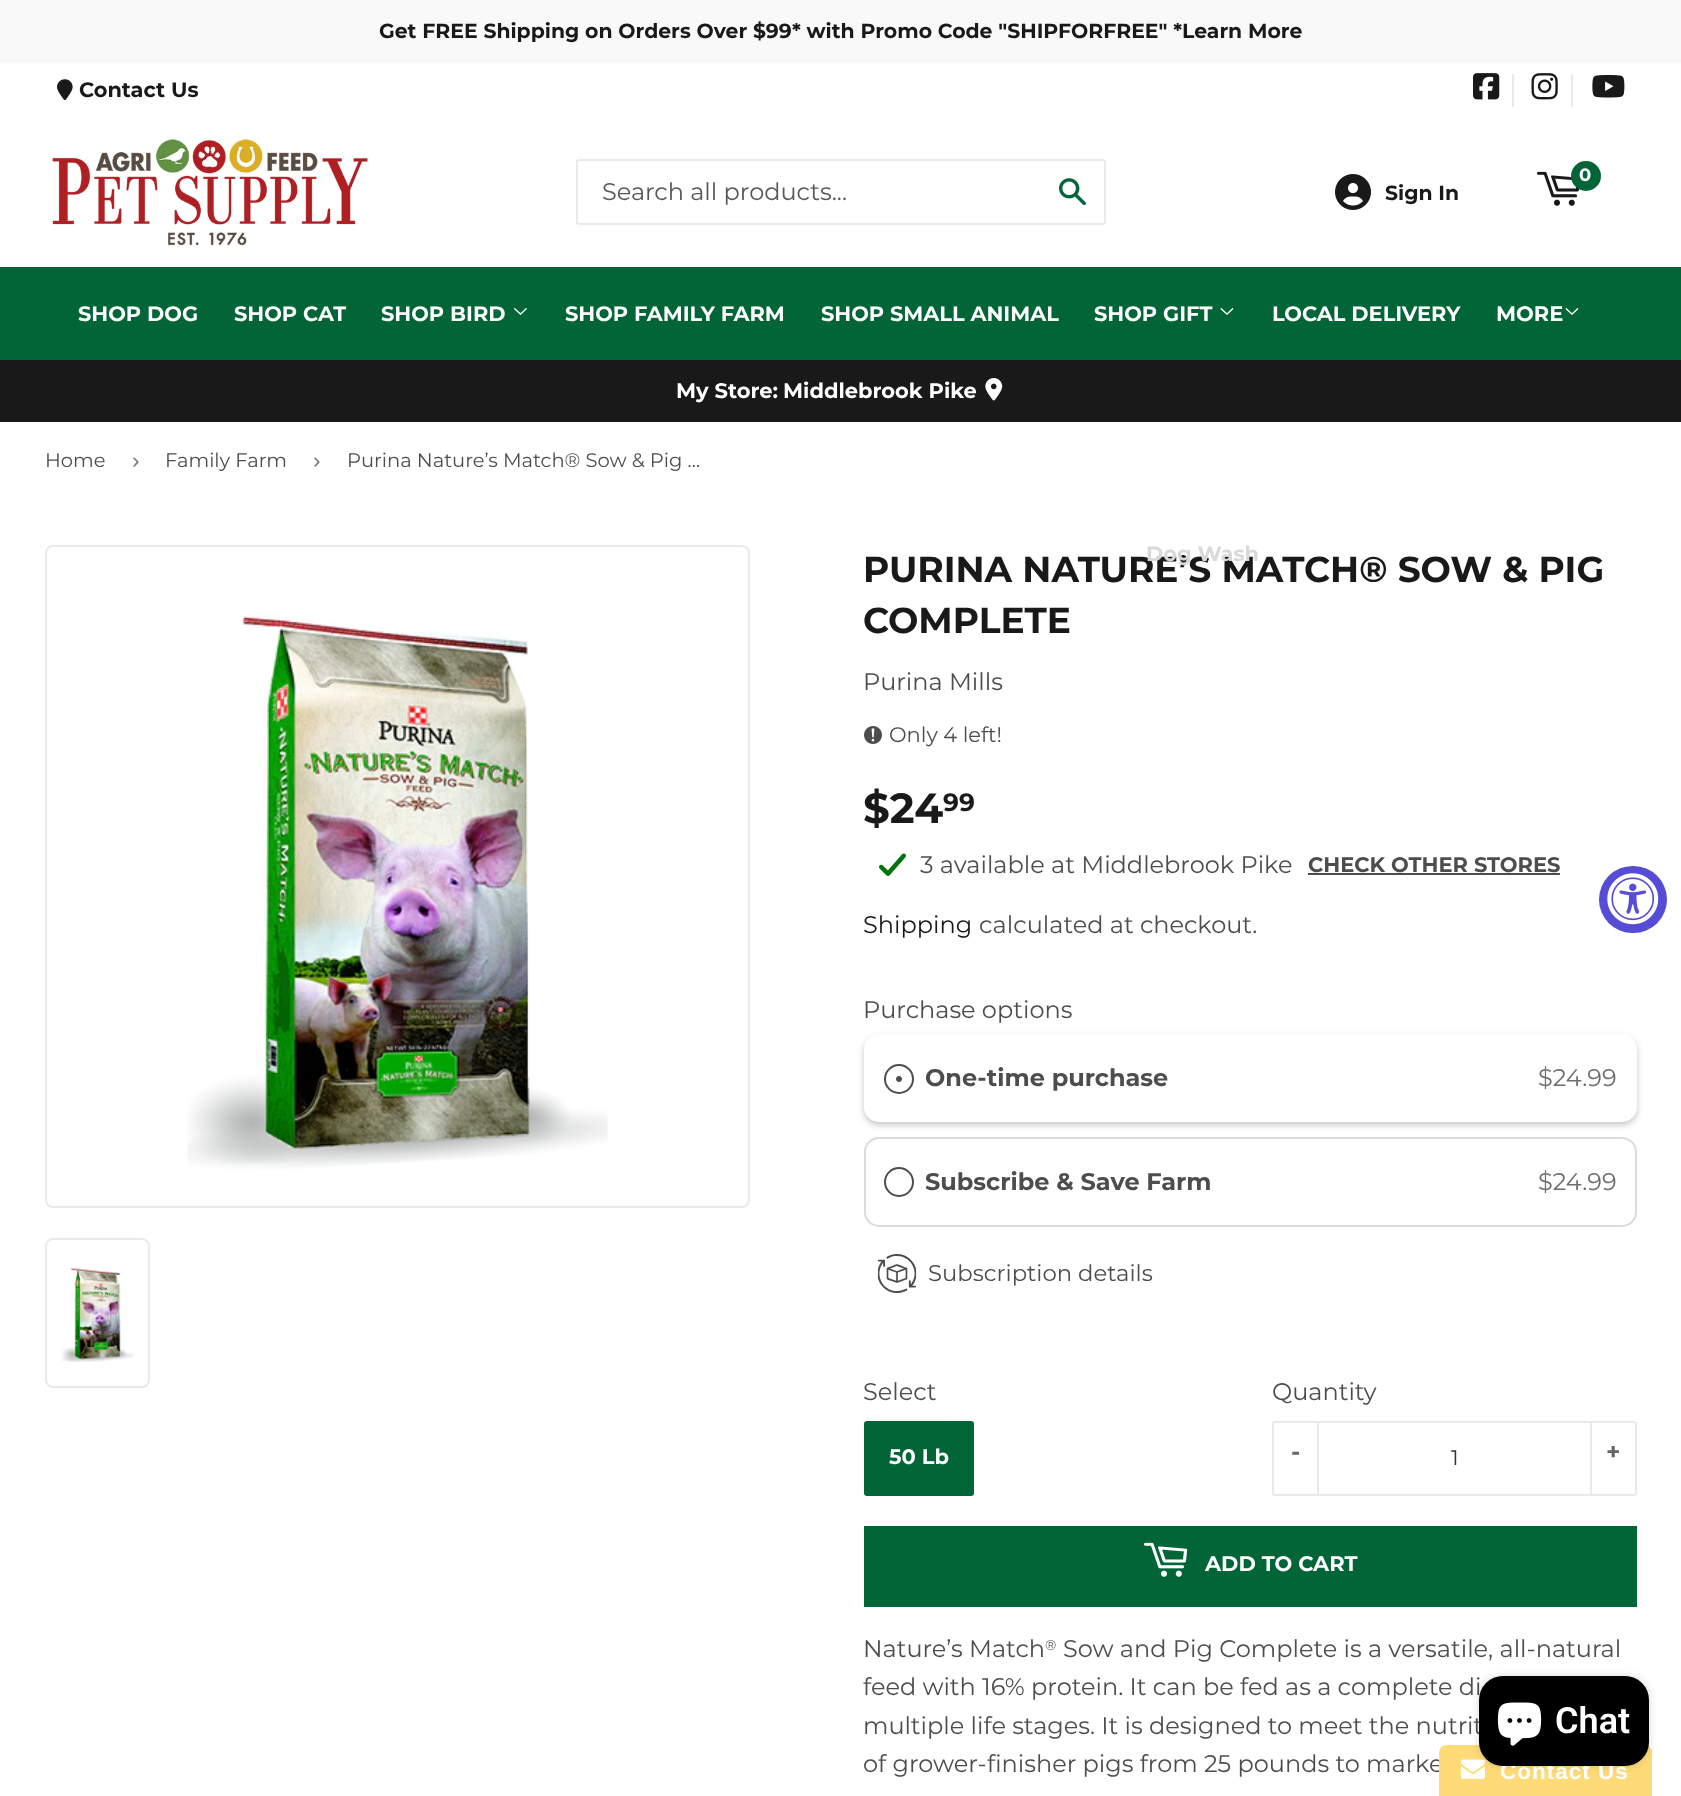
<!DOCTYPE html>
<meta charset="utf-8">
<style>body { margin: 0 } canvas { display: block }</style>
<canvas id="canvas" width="1681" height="1796"></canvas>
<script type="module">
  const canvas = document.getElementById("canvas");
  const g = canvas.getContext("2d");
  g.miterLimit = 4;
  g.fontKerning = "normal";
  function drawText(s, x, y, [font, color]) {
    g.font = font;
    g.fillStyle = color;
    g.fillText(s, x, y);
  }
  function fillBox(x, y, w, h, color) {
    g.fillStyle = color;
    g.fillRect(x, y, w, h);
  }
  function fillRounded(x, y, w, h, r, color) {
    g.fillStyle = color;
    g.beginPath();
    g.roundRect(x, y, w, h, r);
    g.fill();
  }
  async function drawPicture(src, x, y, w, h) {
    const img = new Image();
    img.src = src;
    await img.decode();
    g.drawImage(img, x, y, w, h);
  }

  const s1 = ["bold 20.4px Montserrat", "#191919"];
  const s2 = ["bold 20.9px Montserrat", "#191919"];
  const s3 = ["24px Montserrat", "#585858"];
  const s4 = ["bold 18px Montserrat", "#FFFFFF"];
  const s5 = ["bold 20.9px Montserrat", "#FFFFFF"];
  const s6 = ["bold 21px Montserrat", "#FFFFFF"];
  const s7 = ["bold 36px Montserrat", "#191919"];
  const s8 = ["bold 20.9px Montserrat", "#D9D9D9"];
  const s9 = ["19.5px Montserrat", "#4D4D4D"];
  const s10 = ["22.5px Liberation Sans", "#767676"];
  const s11 = ["24px Montserrat", "#4D4D4D"];
  const s12 = ["21px Montserrat", "#4D4D4D"];
  const s13 = ["bold 42px Montserrat", "#191919"];
  const s14 = ["bold 25px Montserrat", "#191919"];
  const s15 = ["bold 21px Montserrat", "#4D4D4D"];
  const s16 = ["24px Montserrat", "#191919"];
  const s17 = ["bold 24px Montserrat", "#4D4D4D"];
  const s18 = ["24px Montserrat", "#6D6D6D"];
  const s19 = ["22.75px Montserrat", "#4D4D4D"];
  const s20 = ["bold 24px Montserrat", "#666666"];
  const s21 = ["21px Montserrat", "#333333"];
  const s22 = ["14px Montserrat", "#4D4D4D"];
  const s23 = ["bold 22.5px Liberation Sans", "#FFFFFF"];
  const s24 = ["600 36px Roboto", "#FFFFFF"];

  fillBox(0, 0, 1681, 1796, "#FFFFFF");
  fillBox(0, 0, 1681, 63, "#F9F9F9");
  drawText("Get FREE Shipping on Orders Over $99* with Promo Code \"SHIPFORFREE\" *Learn More", 379, 38, s1);
  await drawPicture("pic1.png", 57, 79, 16, 21);
  drawText("Contact Us", 79, 97, s2);
  fillBox(1512, 74, 2, 33, "#EAEAEA");
  await drawPicture("pic2.png", 1473, 73, 27, 27);
  fillBox(1571, 74, 2, 33, "#EAEAEA");
  await drawPicture("pic3.png", 1531, 73, 27, 27);
  await drawPicture("pic4.png", 1592, 75, 33, 23);
  await drawPicture("pic5.png", 52, 139, 316, 107);
  g.beginPath();
  g.roundRect(577, 160, 528, 64, 2);
  g.strokeStyle = "#EAEAEA";
  g.lineWidth = 2;
  g.stroke();
  drawText("Search all products...", 602, 200, s3);
  await drawPicture("pic6.png", 1059, 178, 27, 28);
  await drawPicture("pic7.png", 1536, 171, 44, 35);
  g.fillStyle = "#016537";
  g.beginPath();
  g.arc(1586, 176, 15, 0, Math.PI * 2);
  g.fill();
  drawText("0", 1579, 181, s4);
  await drawPicture("pic8.png", 1335, 174, 36, 36);
  drawText("Sign In", 1385, 200, s1);
  fillBox(0, 267, 1681, 93, "#016537");
  drawText("SHOP DOG", 78, 321, s5);
  drawText("SHOP CAT", 234, 321, s5);
  drawText("SHOP BIRD", 381, 321, s5);
  await drawPicture("pic9.png", 514, 308, 13, 7);
  drawText("SHOP FAMILY FARM", 565, 321, s5);
  drawText("SHOP SMALL ANIMAL", 821, 321, s5);
  drawText("SHOP GIFT", 1094, 321, s5);
  await drawPicture("pic10.png", 1220, 308, 14, 7);
  drawText("MORE", 1496, 321, s6);
  await drawPicture("pic10.png", 1565, 308, 14, 7);
  drawText("PURINA NATURE’S MATCH® SOW & PIG", 863, 582, s7);
  drawText("Dog Wash", 1146, 561, s8);
  drawText("LOCAL DELIVERY", 1272, 321, s5);
  fillBox(0, 360, 1681, 62, "#191919");
  drawText("My Store:", 676, 398, s6);
  drawText("Middlebrook Pike", 783, 398, s6);
  await drawPicture("pic11.png", 985, 378, 18, 23);
  drawText("Home", 45, 467, s9);
  drawText("›", 132, 468, s10);
  drawText("Family Farm", 165, 467, s9);
  drawText("›", 313, 468, s10);
  drawText("Purina Nature’s Match® Sow & Pig …", 347, 467, s9);
  g.beginPath();
  g.roundRect(46, 546, 703, 661, 7);
  g.stroke();
  await drawPicture("pic12.png", 187, 612, 421, 557);
  g.beginPath();
  g.roundRect(46, 1239, 103, 148, 7);
  g.stroke();
  await drawPicture("pic13.png", 61, 1267, 73, 95);
  drawText("COMPLETE", 863, 633, s7);
  drawText("Purina Mills", 863, 690, s11);
  await drawPicture("pic14.png", 864, 726, 18, 18);
  drawText("Only 4 left!", 889, 742, s12);
  drawText("$24", 863, 823, s13);
  drawText("99", 943, 811, s14);
  await drawPicture("pic15.png", 879, 853, 27, 23);
  drawText("3 available at Middlebrook Pike", 920, 873, s11);
  drawText("CHECK OTHER STORES", 1308, 872, s15);
  fillBox(1308, 873, 252, 2, "#4D4D4D");
  drawText("Shipping", 863, 933, s16);
  drawText("calculated at checkout.", 979, 933, s11);
  drawText("Purchase options", 863, 1018, s11);
  g.fillStyle = "rgba(0, 0, 0, 0.22)";
  g.filter = "blur(3px)";
  g.beginPath();
  g.roundRect(864, 1037, 773, 88, 15);
  g.fill();
  g.filter = "none";
  fillRounded(864, 1034, 773, 88, 15, "#FFFFFF");
  g.beginPath();
  g.arc(899, 1079, 14, 0, Math.PI * 2);
  g.strokeStyle = "#4D4D4D";
  g.stroke();
  g.fillStyle = "#4D4D4D";
  g.beginPath();
  g.moveTo(899, 1076);
  g.bezierCurveTo(895, 1076, 895, 1082, 899, 1082);
  g.bezierCurveTo(903, 1082, 903, 1076, 899, 1076);
  g.closePath();
  g.fill();
  drawText("One-time purchase", 925, 1086, s17);
  drawText("$24.99", 1538, 1086, s18);
  g.beginPath();
  g.roundRect(865, 1138, 771, 88, 14);
  g.strokeStyle = "#DBDBDB";
  g.stroke();
  g.beginPath();
  g.arc(899, 1182, 14, 0, Math.PI * 2);
  g.strokeStyle = "#4D4D4D";
  g.stroke();
  drawText("Subscribe & Save Farm", 925, 1190, s17);
  drawText("$24.99", 1538, 1190, s18);
  await drawPicture("pic16.png", 877, 1254, 40, 39);
  drawText("Subscription details", 928, 1281, s19);
  drawText("Select", 863, 1400, s11);
  g.fillStyle = "#016537";
  g.beginPath();
  g.roundRect(865, 1422, 108, 73, 2);
  g.fill();
  g.strokeStyle = "#016537";
  g.stroke();
  drawText("50 Lb", 889, 1464, s6);
  drawText("Quantity", 1272, 1400, s11);
  g.beginPath();
  g.roundRect(1273, 1422, 363, 73, 2);
  g.strokeStyle = "#E9E9E9";
  g.stroke();
  fillBox(1317, 1422, 2, 72, "#E9E9E9");
  drawText("-", 1291, 1460, s20);
  drawText("1", 1451, 1465, s21);
  fillBox(1590, 1422, 2, 72, "#E9E9E9");
  drawText("+", 1606, 1460, s20);
  fillBox(864, 1526, 773, 81, "#016537");
  await drawPicture("pic17.png", 1143, 1542, 45, 35);
  drawText("ADD TO CART", 1205, 1571, s6);
  drawText("Nature’s Match", 863, 1657, s11);
  drawText("®", 1045, 1650, s22);
  drawText("Sow and Pig Complete is a versatile, all-natural", 1063, 1657, s11);
  drawText("feed with 16% protein. It can be fed as a complete di", 863, 1695, s11);
  drawText("multiple life stages. It is designed to meet the nutrit", 863, 1734, s11);
  drawText("of grower-finisher pigs from 25 pounds to marke", 863, 1772, s11);
  fillRounded(1599, 866, 68, 67, 33.5, "#574CD5");
  await drawPicture("pic18.png", 1607, 873, 52, 52);
  g.fillStyle = "#FFDB77";
  g.beginPath();
  g.moveTo(1447, 1745);
  g.lineTo(1644, 1745);
  g.bezierCurveTo(1648.5, 1745, 1652, 1748.5, 1652, 1753);
  g.lineTo(1652, 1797);
  g.lineTo(1439, 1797);
  g.lineTo(1439, 1753);
  g.bezierCurveTo(1439, 1748.5, 1442.5, 1745, 1447, 1745);
  g.closePath();
  g.fill();
  await drawPicture("pic20.png", 1460, 1759, 25, 20);
  g.fillStyle = "rgba(0, 0, 0, 0.15)";
  g.filter = "blur(4px)";
  g.beginPath();
  g.roundRect(1479, 1676, 170, 90, 24);
  g.fill();
  g.filter = "none";
  g.letterSpacing = "1px";
  drawText("Contact Us", 1500, 1779, s23);
  fillRounded(1479, 1676, 170, 90, 24, "#000000");
  await drawPicture("pic19.png", 1497, 1702, 45, 44);
  g.letterSpacing = "0px";
  drawText("Chat", 1555, 1733, s24);
</script>
